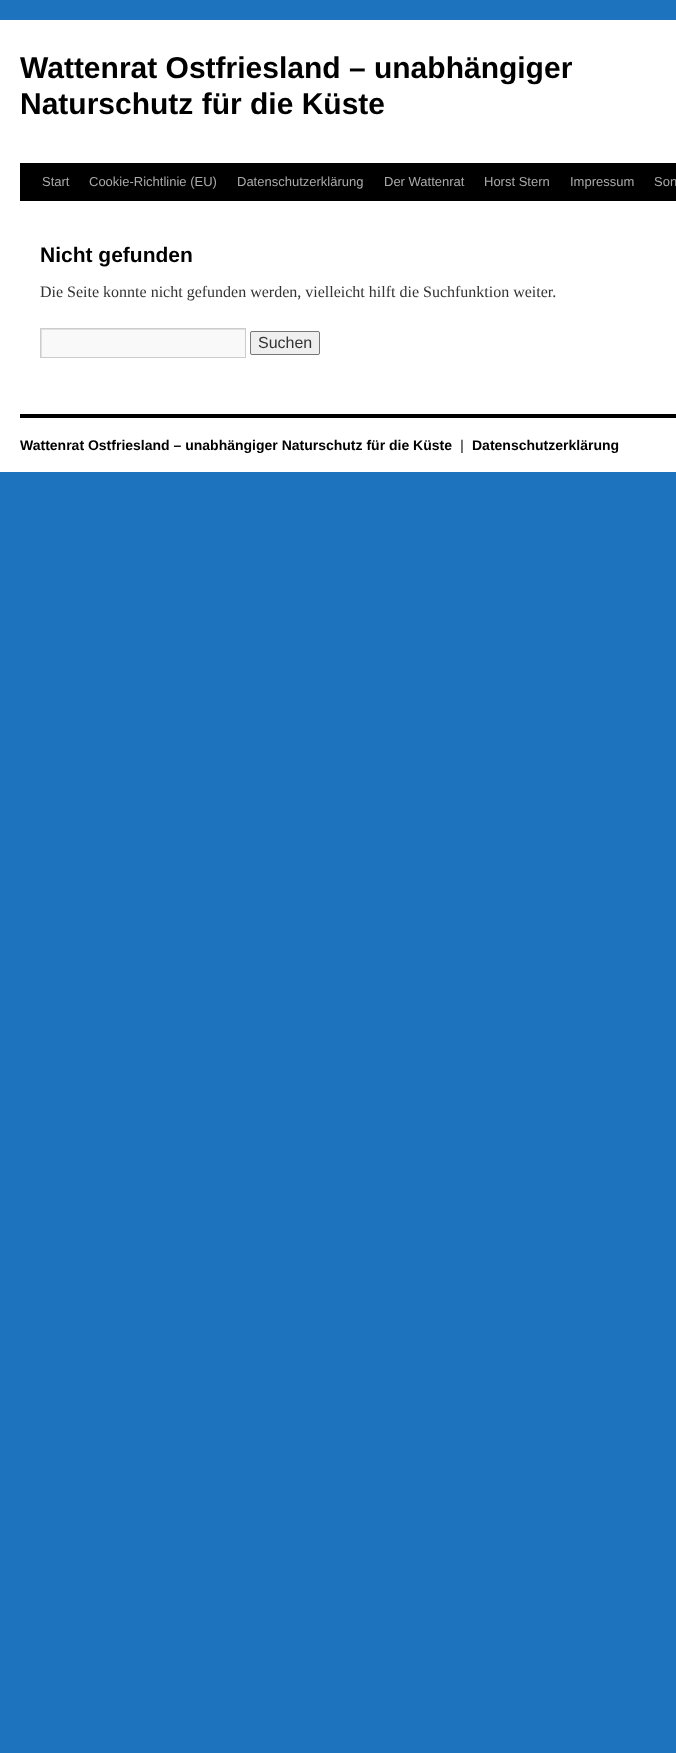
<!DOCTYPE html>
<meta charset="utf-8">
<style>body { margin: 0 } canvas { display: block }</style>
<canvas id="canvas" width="676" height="1753"></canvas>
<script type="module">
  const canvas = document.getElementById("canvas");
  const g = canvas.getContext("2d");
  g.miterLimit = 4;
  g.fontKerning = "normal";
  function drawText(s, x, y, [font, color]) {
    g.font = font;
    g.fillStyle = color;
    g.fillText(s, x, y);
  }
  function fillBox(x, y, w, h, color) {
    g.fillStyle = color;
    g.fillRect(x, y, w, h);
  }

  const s1 = ["bold 30px Liberation Sans", "#000000"];
  const s2 = ["13px Liberation Sans", "#AAAAAA"];
  const s3 = ["bold 21px Liberation Sans", "#000000"];
  const s4 = ["16px Liberation Serif", "#333333"];
  const s5 = ["16px Liberation Sans", "#333333"];
  const s6 = ["bold 14px Liberation Sans", "#000000"];
  const s7 = ["bold 14px Liberation Sans", "#666666"];

  fillBox(0, 0, 676, 1753, "#1E73BE");
  fillBox(0, 20, 676, 452, "#FFFFFF");
  drawText("Wattenrat Ostfriesland – unabhängiger", 20, 78, s1);
  drawText("Naturschutz für die Küste", 20, 114, s1);
  fillBox(20, 163, 656, 38, "#000000");
  drawText("Start", 42, 186, s2);
  drawText("Cookie-Richtlinie (EU)", 89, 186, s2);
  drawText("Datenschutzerklärung", 237, 186, s2);
  drawText("Der Wattenrat", 384, 186, s2);
  drawText("Horst Stern", 484, 186, s2);
  drawText("Impressum", 570, 186, s2);
  drawText("Son", 654, 186, s2);
  drawText("Nicht gefunden", 40, 262, s3);
  drawText("Die Seite konnte nicht gefunden werden, vielleicht hilft die Suchfunktion weiter.", 40, 297, s4);
  fillBox(42, 330, 203, 27, "#F9F9F9");
  g.save();
  g.beginPath();
  g.rect(41, 329, 204, 28);
  g.clip();
  g.fillStyle = "#E0E0E0";
  g.beginPath();
  g.moveTo(-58, 230);
  g.lineTo(344, 230);
  g.lineTo(344, 456);
  g.lineTo(-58, 456);
  g.closePath();
  g.moveTo(42, 330);
  g.lineTo(246, 330);
  g.lineTo(246, 358);
  g.lineTo(42, 358);
  g.closePath();
  g.fill("evenodd");
  g.restore();
  g.strokeStyle = "#CCCCCC";
  g.strokeRect(40.5, 328.5, 205, 29);
  g.fillStyle = "#EFEFEF";
  g.beginPath();
  g.roundRect(250.5, 331.5, 69, 23, 1.5);
  g.fill();
  g.strokeStyle = "#767676";
  g.stroke();
  drawText("Suchen", 258, 348, s5);
  fillBox(20, 414, 656, 4, "#000000");
  drawText("Wattenrat Ostfriesland – unabhängiger Naturschutz für die Küste", 20, 450, s6);
  drawText("|", 460, 450, s7);
  drawText("Datenschutzerklärung", 472, 450, s6);
</script>
